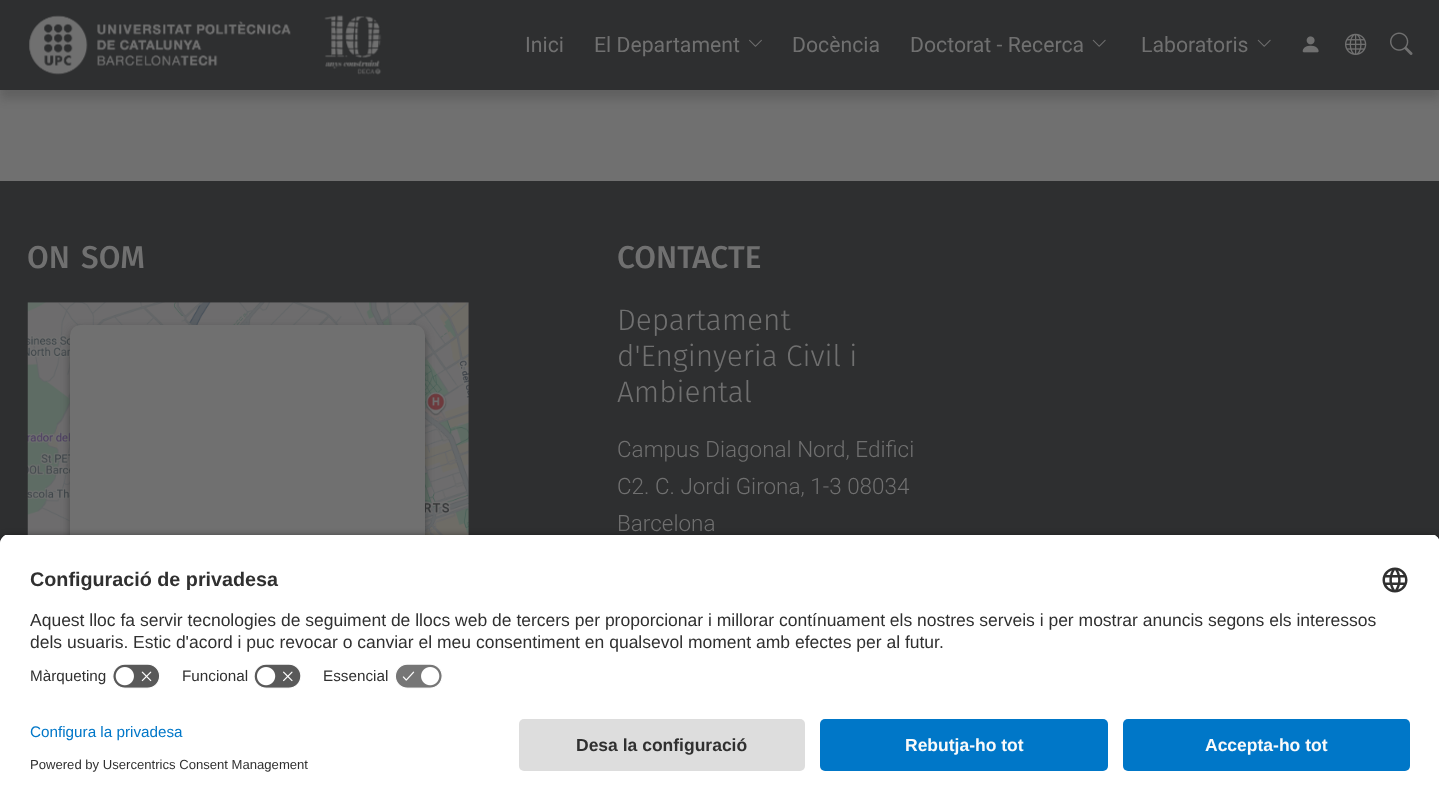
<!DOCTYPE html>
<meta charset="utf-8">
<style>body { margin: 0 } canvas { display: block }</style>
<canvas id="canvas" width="1439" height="801"></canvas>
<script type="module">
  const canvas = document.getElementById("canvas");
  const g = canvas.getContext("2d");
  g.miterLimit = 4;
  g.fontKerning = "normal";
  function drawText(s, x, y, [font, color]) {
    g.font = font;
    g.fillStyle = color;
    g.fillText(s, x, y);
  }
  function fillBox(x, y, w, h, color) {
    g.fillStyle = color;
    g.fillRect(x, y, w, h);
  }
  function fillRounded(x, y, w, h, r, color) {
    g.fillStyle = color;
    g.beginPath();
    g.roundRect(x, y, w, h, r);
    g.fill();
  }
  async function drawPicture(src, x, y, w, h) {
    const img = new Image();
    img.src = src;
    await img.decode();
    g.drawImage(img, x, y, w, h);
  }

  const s1 = ["21.25px Roboto", "#707070"];
  const s2 = ["500 31.5px Fira Sans", "#707070"];
  const s3 = ["300 29.75px Fira Sans", "#707070"];
  const s4 = ["300 22.5px Roboto", "#707070"];
  const s5 = ["bold 19.75px Liberation Sans", "#303030"];
  const s6 = ["17.5px Liberation Sans", "#303030"];
  const s7 = ["15.25px Liberation Sans", "#303030"];
  const s8 = ["15.25px Liberation Sans", "#0077C8"];
  const s9 = ["13.1px Liberation Sans", "#303030"];
  const s10 = ["bold 17.5px Liberation Sans", "#303030"];
  const s11 = ["bold 17.5px Liberation Sans", "#FAFAFA"];

  fillBox(0, 0, 1439, 801, "#707070");
  g.fillStyle = "rgba(36, 36, 36, 0.2)";
  g.filter = "blur(5px)";
  g.beginPath();
  g.rect(0, 9, 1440, 90);
  g.fill();
  g.filter = "none";
  fillBox(0, 0, 1439, 90, "#2E2F30");
  await drawPicture("pic1.png", 29, 15, 262, 60);
  await drawPicture("pic2.png", 324, 15, 58, 60);
  drawText("Inici", 525, 52, s1);
  drawText("El Departament", 594, 52, s1);
  await drawPicture("pic3.png", 749, 39, 13, 8);
  drawText("Docència", 792, 52, s1);
  drawText("Doctorat - Recerca", 910, 52, s1);
  await drawPicture("pic4.png", 1092, 39, 14, 8);
  drawText("Laboratoris", 1141, 52, s1);
  await drawPicture("pic4.png", 1257, 39, 14, 8);
  await drawPicture("pic5.png", 1302, 36, 17, 17);
  await drawPicture("pic6.png", 1345, 33, 22, 22);
  await drawPicture("pic7.png", 1390, 32, 23, 23);
  fillBox(0, 181, 1439, 363, "#2E2F30");
  drawText("ON", 27, 268, s2);
  drawText("SOM", 81, 268, s2);
  await drawPicture("pic8.png", 27, 302, 442, 233);
  g.fillStyle = "rgba(36, 36, 36, 0.5)";
  g.filter = "blur(4px)";
  g.beginPath();
  g.roundRect(70, 329, 355, 356, 10);
  g.fill();
  g.filter = "none";
  fillRounded(70, 325, 355, 356, 10, "#707070");
  drawText("CONTACTE", 617, 268, s2);
  drawText("Departament", 617, 330, s3);
  drawText("d'Enginyeria Civil i", 617, 366, s3);
  drawText("Ambiental", 617, 402, s3);
  drawText("Campus Diagonal Nord, Edifici", 617, 457, s4);
  drawText("C2. C. Jordi Girona, 1-3 08034", 617, 494, s4);
  drawText("Barcelona", 617, 531, s4);
  g.fillStyle = "rgba(0, 0, 0, 0.8)";
  g.filter = "blur(4.5px)";
  g.beginPath();
  g.roundRect(0, 538, 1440, 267, 10);
  g.fill();
  g.filter = "none";
  g.save();
  g.beginPath();
  g.moveTo(10, 534);
  g.lineTo(1430, 534);
  g.bezierCurveTo(1435.5, 534, 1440, 538.5, 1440, 544);
  g.lineTo(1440, 709);
  g.lineTo(0, 709);
  g.lineTo(0, 544);
  g.bezierCurveTo(0, 538.5, 4.5, 534, 10, 534);
  g.closePath();
  g.clip();
  fillBox(0, 535, 1439, 174, "#FFFFFF");
  fillBox(0, 535, 1439, 124, "#FFFFFF");
  g.restore();
  drawText("Configuració de privadesa", 30, 586, s5);
  await drawPicture("pic9.png", 1382, 567, 26, 26);
  drawText("Aquest lloc fa servir tecnologies de seguiment de llocs web de tercers per proporcionar i millorar contínuament els nostres serveis i per mostrar anuncis segons els interessos", 30, 626, s6);
  drawText("dels usuaris. Estic d'acord i puc revocar o canviar el meu consentiment en qualsevol moment amb efectes per al futur.", 30, 648, s6);
  drawText("Màrqueting", 30, 681, s7);
  await drawPicture("pic10.png", 112, 664, 48, 25);
  drawText("Funcional", 182, 681, s7);
  await drawPicture("pic11.png", 254, 664, 47, 25);
  drawText("Essencial", 323, 681, s7);
  await drawPicture("pic12.png", 395, 664, 48, 25);
  fillBox(0, 709, 1439, 92, "#FFFFFF");
  drawText("Configura la privadesa", 30, 737, s8);
  drawText("Powered by Usercentrics Consent Management", 30, 769, s9);
  fillRounded(519, 719, 286, 52, 5, "#DDDDDD");
  drawText("Desa la configuració", 576, 751, s10);
  fillRounded(820, 719, 288, 52, 5, "#0077C8");
  drawText("Rebutja-ho tot", 905, 751, s11);
  fillRounded(1123, 719, 287, 52, 5, "#0077C8");
  drawText("Accepta-ho tot", 1205, 751, s11);
</script>
